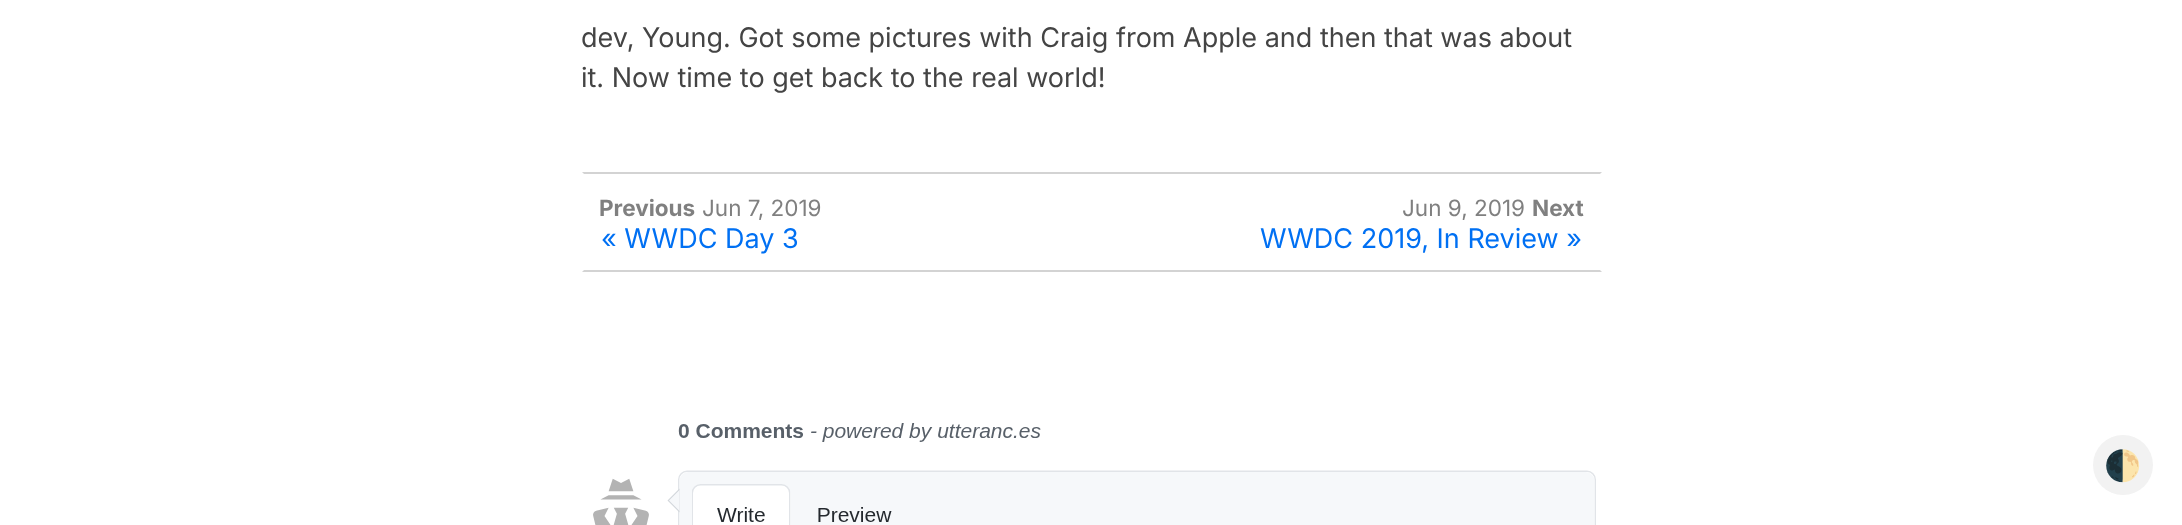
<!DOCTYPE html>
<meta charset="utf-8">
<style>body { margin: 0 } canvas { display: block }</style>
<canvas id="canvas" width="2182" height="525"></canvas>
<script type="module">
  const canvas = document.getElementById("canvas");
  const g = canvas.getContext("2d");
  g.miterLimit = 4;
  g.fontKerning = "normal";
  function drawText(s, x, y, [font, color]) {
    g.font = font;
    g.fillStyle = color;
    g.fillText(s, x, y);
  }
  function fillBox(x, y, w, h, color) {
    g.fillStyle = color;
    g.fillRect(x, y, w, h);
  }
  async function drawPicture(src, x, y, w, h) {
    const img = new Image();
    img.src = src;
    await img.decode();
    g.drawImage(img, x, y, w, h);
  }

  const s1 = ["27px Inter", "#444444"];
  const s2 = ["bold 22.5px Inter", "#808080"];
  const s3 = ["22.5px Inter", "#808080"];
  const s4 = ["27px Inter", "#0070F3"];
  const s5 = ["30px Noto Color Emoji", "#444444"];

  fillBox(0, 0, 2182, 525, "#FFFFFF");
  drawText("dev, Young. Got some pictures with Craig from Apple and then that was about", 581, 47, s1);
  drawText("it. Now time to get back to the real world!", 581, 87, s1);
  g.fillStyle = "#D3D3D3";
  g.beginPath();
  g.moveTo(582, 172);
  g.lineTo(1602, 172);
  g.lineTo(1600, 174);
  g.lineTo(584, 174);
  g.closePath();
  g.fill();
  g.beginPath();
  g.moveTo(1602, 272);
  g.lineTo(582, 272);
  g.lineTo(584, 270);
  g.lineTo(1600, 270);
  g.closePath();
  g.fill();
  drawText("Previous", 599, 216, s2);
  drawText("Jun 7, 2019", 702, 216, s3);
  drawText("« WWDC Day 3", 601, 248, s4);
  drawText("Jun 9, 2019", 1402, 216, s3);
  drawText("Next", 1532, 216, s2);
  drawText("WWDC 2019, In Review »", 1260, 248, s4);
  await drawPicture("pic1.png", 593, 423, 1003, 102);
  g.fillStyle = "#F2F2F2";
  g.beginPath();
  g.arc(2123, 465, 30, 0, Math.PI * 2);
  g.fill();
  drawText("🌓", 2104, 476, s5);
</script>
